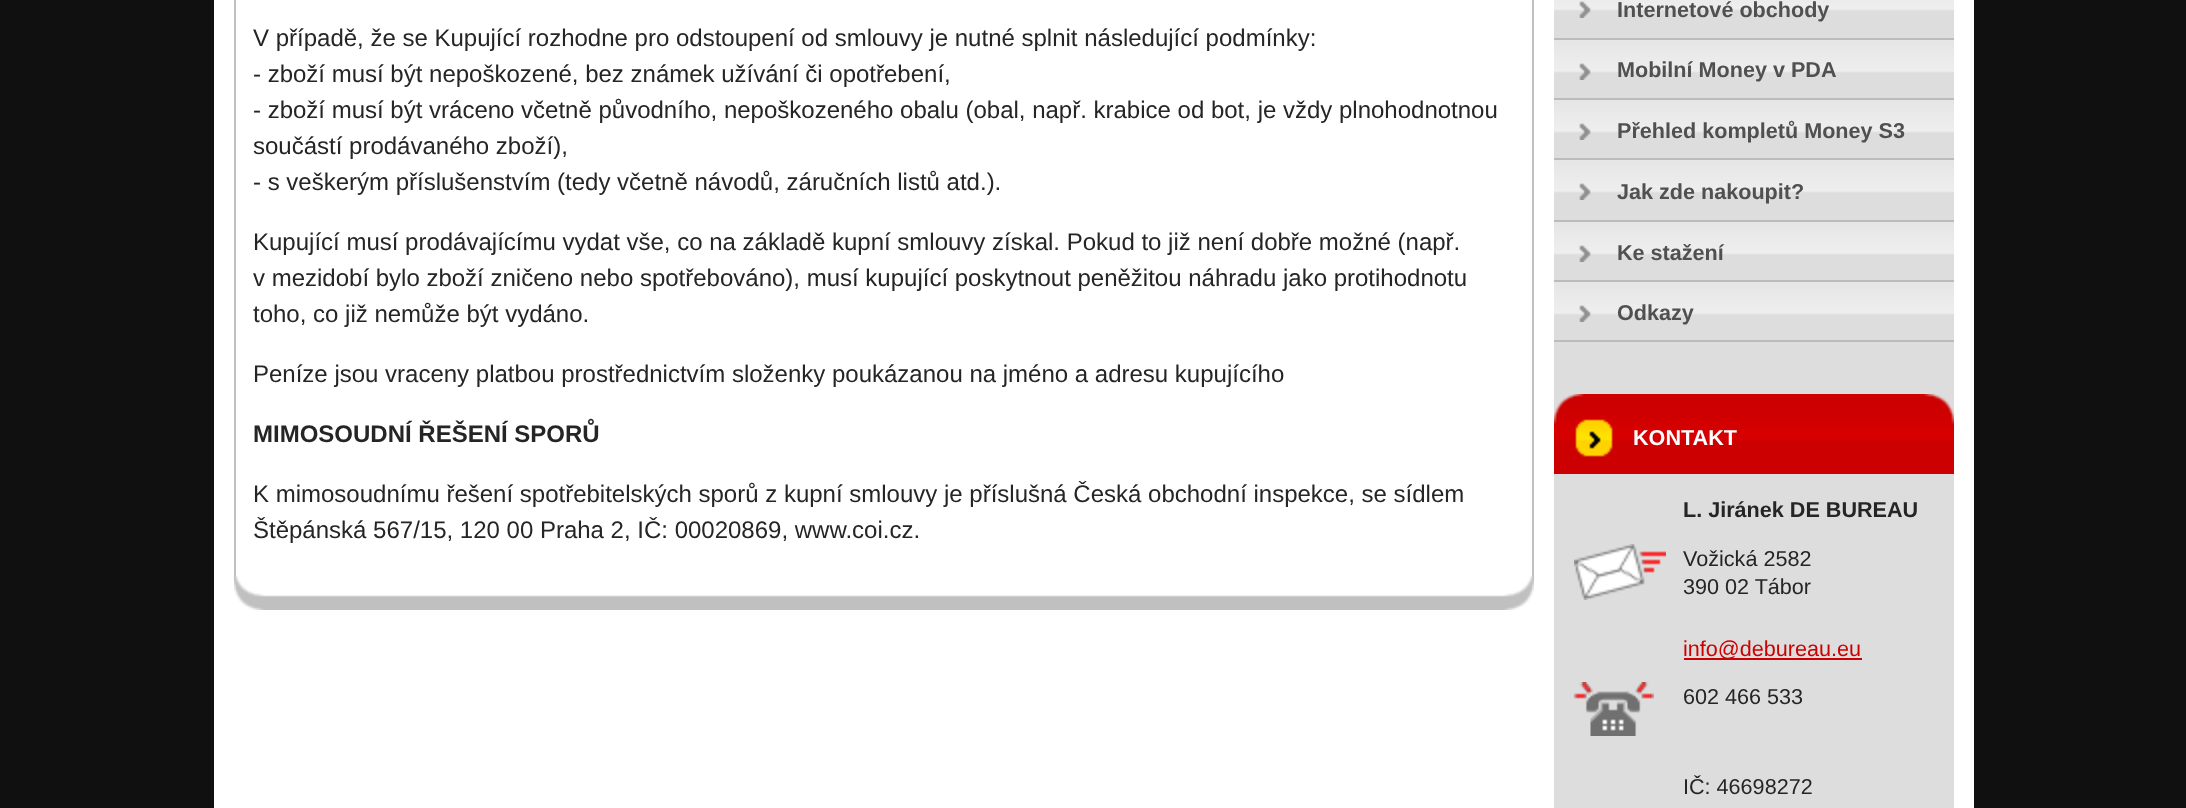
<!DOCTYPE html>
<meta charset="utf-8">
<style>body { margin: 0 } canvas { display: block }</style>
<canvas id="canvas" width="2186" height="808"></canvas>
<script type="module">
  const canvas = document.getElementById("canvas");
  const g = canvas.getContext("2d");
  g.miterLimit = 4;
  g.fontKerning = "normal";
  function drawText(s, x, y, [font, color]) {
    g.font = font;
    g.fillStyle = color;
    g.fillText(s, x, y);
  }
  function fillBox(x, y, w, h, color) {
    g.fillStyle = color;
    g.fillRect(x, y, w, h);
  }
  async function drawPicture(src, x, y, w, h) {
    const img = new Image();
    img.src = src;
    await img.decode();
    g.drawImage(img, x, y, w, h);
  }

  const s1 = ["24px Liberation Sans", "#252525"];
  const s2 = ["bold 24px Liberation Sans", "#252525"];
  const s3 = ["bold 21.6px Liberation Sans", "#505050"];
  const s4 = ["bold 21.6px Liberation Sans", "#FFFFFF"];
  const s5 = ["bold 21.6px Liberation Sans", "#252525"];
  const s6 = ["21.6px Liberation Sans", "#252525"];
  const s7 = ["21.6px Liberation Sans", "#CC0000"];

  fillBox(0, 0, 2186, 808, "#101010");
  fillBox(214, 0, 1760, 808, "#FFFFFF");
  fillBox(1532, 0, 2, 576, "#C0C0C0");
  fillBox(234, 0, 2, 576, "#C0C0C0");
  await drawPicture("pic1.png", 234, 576, 1300, 34);
  drawText("V případě, že se Kupující rozhodne pro odstoupení od smlouvy je nutné splnit následující podmínky:", 253, 46, s1);
  drawText("- zboží musí být nepoškozené, bez známek užívání či opotřebení,", 253, 82, s1);
  drawText("- zboží musí být vráceno včetně původního, nepoškozeného obalu (obal, např. krabice od bot, je vždy plnohodnotnou", 253, 118, s1);
  drawText("součástí prodávaného zboží),", 253, 154, s1);
  drawText("- s veškerým příslušenstvím (tedy včetně návodů, záručních listů atd.).", 253, 190, s1);
  drawText("Kupující musí prodávajícímu vydat vše, co na základě kupní smlouvy získal. Pokud to již není dobře možné (např.", 253, 250, s1);
  drawText("v mezidobí bylo zboží zničeno nebo spotřebováno), musí kupující poskytnout peněžitou náhradu jako protihodnotu", 253, 286, s1);
  drawText("toho, co již nemůže být vydáno.", 253, 322, s1);
  drawText("Peníze jsou vraceny platbou prostřednictvím složenky poukázanou na jméno a adresu kupujícího", 253, 382, s1);
  drawText("MIMOSOUDNÍ ŘEŠENÍ SPORŮ", 253, 442, s2);
  drawText("K mimosoudnímu řešení spotřebitelských sporů z kupní smlouvy je příslušná Česká obchodní inspekce, se sídlem", 253, 502, s1);
  drawText("Štěpánská 567/15, 120 00 Praha 2, IČ: 00020869, www.coi.cz.", 253, 538, s1);
  fillBox(1554, 18, 400, 376, "#DDDDDD");
  await drawPicture("pic2.png", 1554, 0, 400, 18);
  fillBox(1554, 38, 400, 2, "#BBBBBB");
  drawText("Internetové obchody", 1617, 17, s3);
  await drawPicture("pic3.png", 1554, 40, 400, 40);
  fillBox(1554, 98, 400, 2, "#BBBBBB");
  drawText("Mobilní Money v PDA", 1617, 77, s3);
  await drawPicture("pic3.png", 1554, 100, 400, 40);
  fillBox(1554, 158, 400, 2, "#BBBBBB");
  drawText("Přehled kompletů Money S3", 1617, 138, s3);
  await drawPicture("pic3.png", 1554, 160, 400, 40);
  fillBox(1554, 220, 400, 2, "#BBBBBB");
  drawText("Jak zde nakoupit?", 1617, 199, s3);
  await drawPicture("pic3.png", 1554, 222, 400, 40);
  fillBox(1554, 280, 400, 2, "#BBBBBB");
  drawText("Ke stažení", 1617, 260, s3);
  await drawPicture("pic3.png", 1554, 282, 400, 40);
  fillBox(1554, 340, 400, 2, "#BBBBBB");
  drawText("Odkazy", 1617, 320, s3);
  fillBox(1554, 474, 400, 334, "#DDDDDD");
  fillBox(1554, 457, 400, 17, "#CC0000");
  await drawPicture("pic4.png", 1554, 394, 400, 63);
  drawText("KONTAKT", 1633, 445, s4);
  drawText("L. Jiránek DE BUREAU", 1683, 517, s5);
  await drawPicture("pic5.png", 1574, 544, 92, 56);
  drawText("Vožická 2582", 1683, 566, s6);
  drawText("390 02 Tábor", 1683, 594, s6);
  fillBox(1684, 658, 178, 2, "#CC0000");
  drawText("info@debureau.eu", 1683, 656, s7);
  await drawPicture("pic6.png", 1574, 682, 80, 54);
  drawText("602 466 533", 1683, 704, s6);
  drawText("IČ: 46698272", 1683, 794, s6);
</script>
